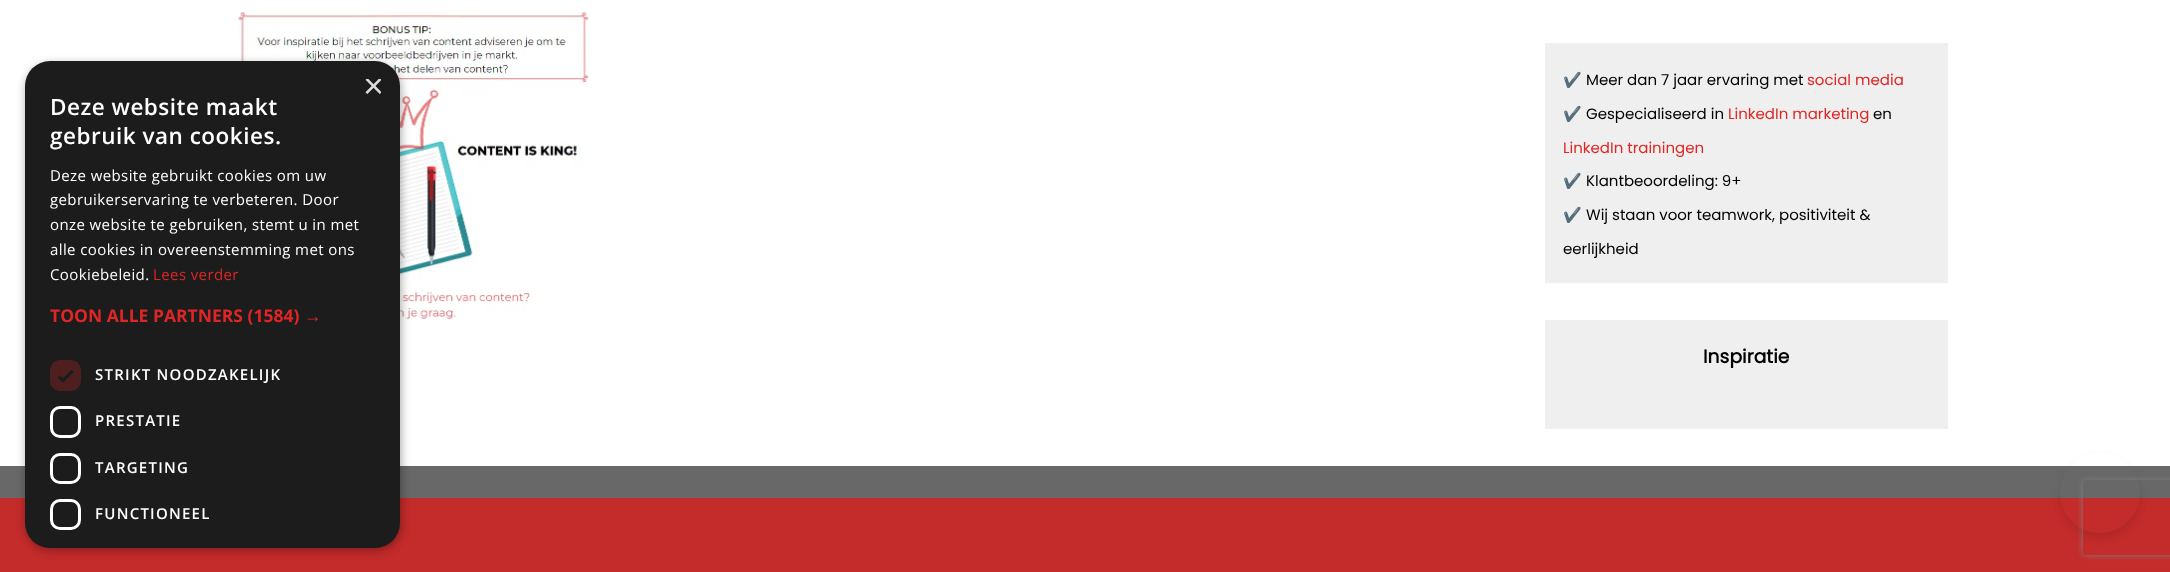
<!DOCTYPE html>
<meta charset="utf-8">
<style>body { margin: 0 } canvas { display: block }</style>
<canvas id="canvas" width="2170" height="572"></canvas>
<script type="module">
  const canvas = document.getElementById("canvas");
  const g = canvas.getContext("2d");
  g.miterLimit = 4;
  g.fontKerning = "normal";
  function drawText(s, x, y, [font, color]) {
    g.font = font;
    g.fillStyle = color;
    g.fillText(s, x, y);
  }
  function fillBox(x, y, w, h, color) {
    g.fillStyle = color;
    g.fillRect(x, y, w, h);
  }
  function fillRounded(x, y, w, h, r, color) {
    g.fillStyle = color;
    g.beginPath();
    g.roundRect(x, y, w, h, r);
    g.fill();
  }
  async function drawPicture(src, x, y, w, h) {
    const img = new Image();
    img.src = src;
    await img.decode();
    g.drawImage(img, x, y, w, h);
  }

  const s1 = ["36px Liberation Sans", "#DDDDDD"];
  const s2 = ["600 22.5px Open Sans", "#FFFFFF"];
  const s3 = ["15px Open Sans", "#FFFFFF"];
  const s4 = ["15px Open Sans", "#DF2626"];
  const s5 = ["bold 17.5px Open Sans", "#DF2626"];
  const s6 = ["bold 17.5px Liberation Sans", "#DF2626"];
  const s7 = ["600 15px Open Sans", "#FFFFFF"];
  const s8 = ["15px Noto Color Emoji", "#000000"];
  const s9 = ["15px Poppins", "#000000"];
  const s10 = ["15px Poppins", "#DF2626"];
  const s11 = ["bold 18.75px Poppins", "#000000"];

  fillBox(0, 0, 2170, 572, "#FFFFFF");
  await drawPicture("pic1.png", 238, 12, 351, 308);
  fillBox(0, 466, 2170, 32, "#686868");
  fillBox(0, 498, 2170, 74, "#C42B2B");
  g.fillStyle = "rgba(0, 0, 0, 0.35)";
  g.filter = "blur(5px)";
  g.beginPath();
  g.roundRect(26, 64, 375, 486, 25);
  g.fill();
  g.filter = "none";
  fillRounded(25, 61, 375, 487, 25, "#1C1C1C");
  g.save();
  g.beginPath();
  g.rect(363, 79, 18, 19);
  g.clip();
  drawText("×", 363, 98, s1);
  g.restore();
  g.letterSpacing = "0.5px";
  drawText("Deze website maakt", 50, 115, s2);
  drawText("gebruik van cookies.", 50, 144, s2);
  g.letterSpacing = "0.4px";
  drawText("Deze website gebruikt cookies om uw", 50, 181, s3);
  drawText("gebruikerservaring te verbeteren. Door", 50, 205, s3);
  drawText("onze website te gebruiken, stemt u in met", 50, 230, s3);
  drawText("alle cookies in overeenstemming met ons", 50, 255, s3);
  drawText("Cookiebeleid.", 50, 280, s3);
  drawText("Lees verder", 153, 280, s4);
  g.letterSpacing = "0px";
  drawText("TOON ALLE PARTNERS (1584)", 50, 322, s5);
  drawText("→", 304, 322, s6);
  fillRounded(50, 360, 31, 31, 10, "#4F1F1F");
  g.beginPath();
  g.moveTo(58.5, 376.5);
  g.lineTo(63, 380.5);
  g.lineTo(72.5, 371);
  g.strokeStyle = "#1C1C1C";
  g.lineWidth = 3.3;
  g.stroke();
  g.letterSpacing = "1.25px";
  drawText("STRIKT NOODZAKELIJK", 95, 380, s7);
  g.beginPath();
  g.roundRect(51.5, 407.5, 28, 29, 8.5);
  g.strokeStyle = "#FFFFFF";
  g.lineWidth = 3;
  g.stroke();
  drawText("PRESTATIE", 95, 426, s7);
  g.beginPath();
  g.roundRect(51.5, 454.5, 28, 28, 8.5);
  g.stroke();
  drawText("TARGETING", 95, 473, s7);
  g.beginPath();
  g.roundRect(51.5, 500.5, 28, 28, 8.5);
  g.stroke();
  drawText("FUNCTIONEEL", 95, 519, s7);
  fillBox(1545, 43, 403, 240, "#EFEFEF");
  g.letterSpacing = "0px";
  drawText("✔️", 1563, 85, s8);
  drawText("Meer dan 7 jaar ervaring met", 1586, 85, s9);
  drawText("social media", 1807, 85, s10);
  drawText("✔️", 1563, 119, s8);
  drawText("Gespecialiseerd in", 1586, 119, s9);
  drawText("LinkedIn marketing", 1728, 119, s10);
  drawText("en", 1873, 119, s9);
  drawText("LinkedIn trainingen", 1563, 153, s10);
  drawText("✔️", 1563, 186, s8);
  drawText("Klantbeoordeling: 9+", 1586, 186, s9);
  drawText("✔️", 1563, 220, s8);
  drawText("Wij staan voor teamwork, positiviteit &", 1586, 220, s9);
  drawText("eerlijkheid", 1563, 254, s9);
  fillBox(1545, 320, 403, 109, "#EFEFEF");
  drawText("Inspiratie", 1703, 363, s11);
  g.save();
  g.beginPath();
  g.moveTo(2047, 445);
  g.lineTo(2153, 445);
  g.lineTo(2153, 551);
  g.lineTo(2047, 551);
  g.closePath();
  g.moveTo(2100, 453);
  g.bezierCurveTo(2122, 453, 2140, 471, 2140, 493);
  g.bezierCurveTo(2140, 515, 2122, 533, 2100, 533);
  g.bezierCurveTo(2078, 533, 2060, 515, 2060, 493);
  g.bezierCurveTo(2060, 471, 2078, 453, 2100, 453);
  g.closePath();
  g.clip("evenodd");
  g.fillStyle = "rgba(0, 0, 0, 0.1)";
  g.filter = "blur(4px)";
  g.beginPath();
  g.roundRect(2060, 458, 80, 80, 40);
  g.fill();
  g.filter = "none";
  g.restore();
  g.save();
  g.beginPath();
  g.moveTo(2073, 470);
  g.lineTo(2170, 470);
  g.lineTo(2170, 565);
  g.lineTo(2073, 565);
  g.closePath();
  g.moveTo(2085.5, 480);
  g.lineTo(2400.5, 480);
  g.bezierCurveTo(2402, 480, 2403, 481, 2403, 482.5);
  g.lineTo(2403, 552.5);
  g.bezierCurveTo(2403, 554, 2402, 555, 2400.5, 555);
  g.lineTo(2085.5, 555);
  g.bezierCurveTo(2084, 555, 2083, 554, 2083, 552.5);
  g.lineTo(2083, 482.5);
  g.bezierCurveTo(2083, 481, 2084, 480, 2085.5, 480);
  g.closePath();
  g.clip("evenodd");
  g.fillStyle = "#808080";
  g.filter = "blur(3px)";
  g.beginPath();
  g.roundRect(2083, 480, 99, 75, 2.5);
  g.fill();
  g.filter = "none";
  g.restore();
</script>
